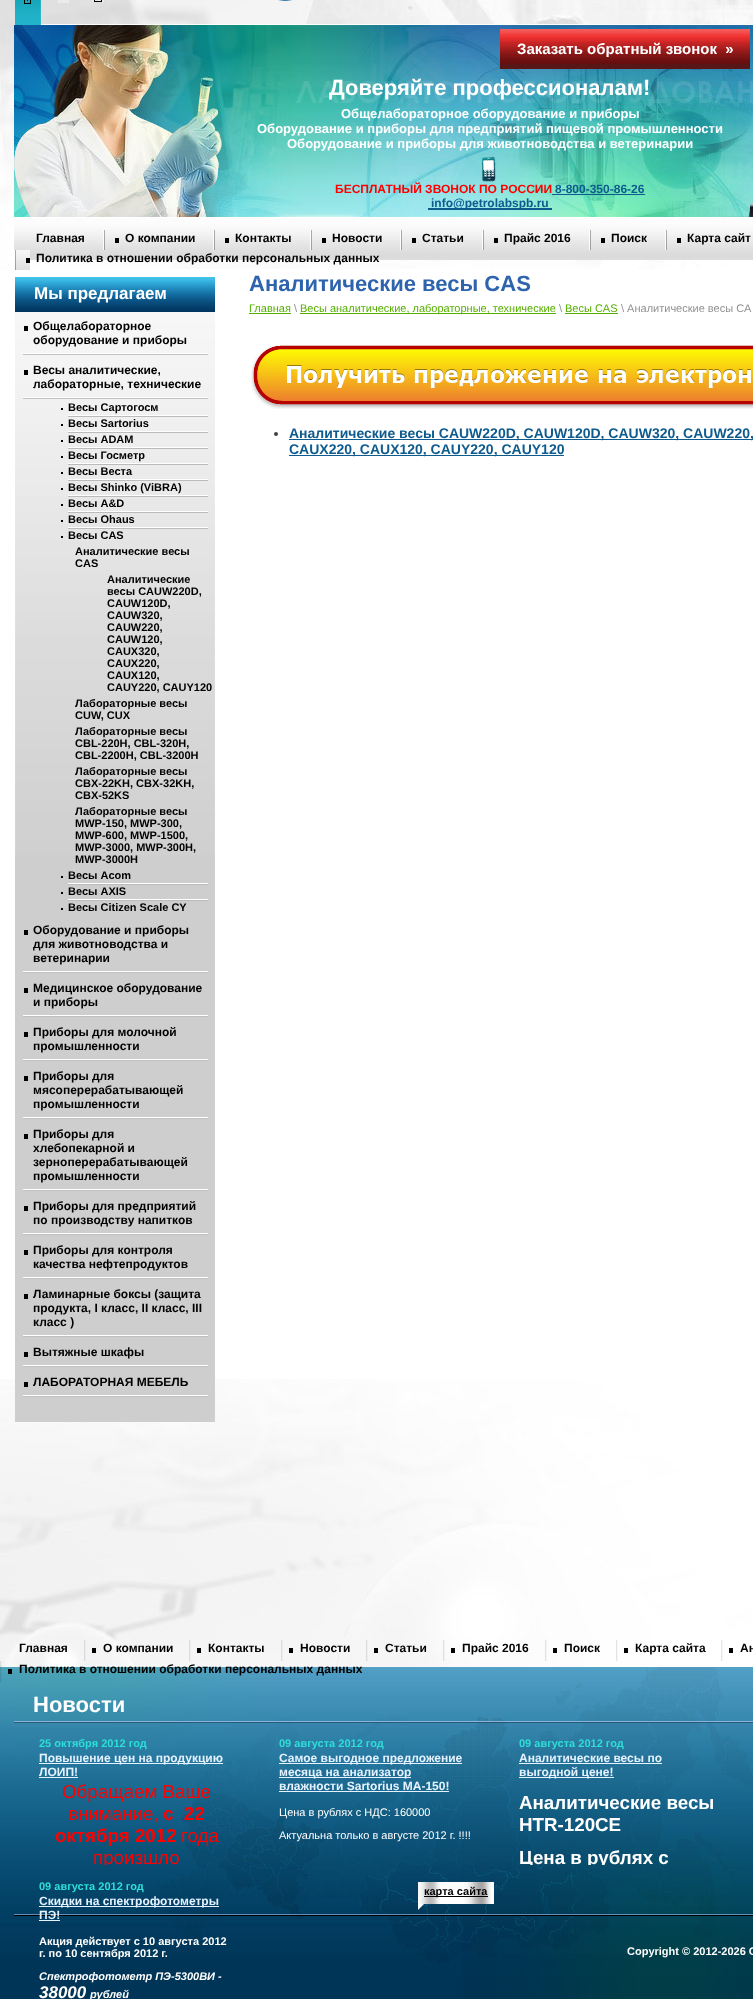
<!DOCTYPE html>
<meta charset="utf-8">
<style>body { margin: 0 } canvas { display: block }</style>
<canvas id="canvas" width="753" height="2008"></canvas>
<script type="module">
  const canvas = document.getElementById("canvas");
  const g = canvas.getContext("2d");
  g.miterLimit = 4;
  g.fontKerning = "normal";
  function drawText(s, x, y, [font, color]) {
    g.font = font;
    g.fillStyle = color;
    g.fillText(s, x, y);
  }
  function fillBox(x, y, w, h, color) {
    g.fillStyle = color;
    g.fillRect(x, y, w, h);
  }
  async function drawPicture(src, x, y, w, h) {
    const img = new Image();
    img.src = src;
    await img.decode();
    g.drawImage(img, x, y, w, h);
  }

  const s1 = ["bold 15px Liberation Sans", "#FFFFFF"];
  const s2 = ["bold 22px Liberation Sans", "#FFFFFF"];
  const s3 = ["bold 13px Liberation Sans", "#FFFFFF"];
  const s4 = ["bold 12px Liberation Sans", "#FF0000"];
  const s5 = ["bold 12px Liberation Sans", "#0E5B8E"];
  const s6 = ["bold 12px Liberation Sans", "#000000"];
  const s7 = ["bold 17px Liberation Sans", "#FFFFFF"];
  const s8 = ["bold 11px Liberation Sans", "#000000"];
  const s9 = ["bold 22px Liberation Sans", "#2E63AE"];
  const s10 = ["11px Liberation Sans", "#56AE00"];
  const s11 = ["11px Liberation Sans", "#909090"];
  const s12 = ["bold 14px Liberation Sans", "#0E5B8E"];
  const s13 = ["bold 11px Liberation Sans", "#2EDFD9"];
  const s14 = ["bold 12px Liberation Sans", "#E5F2FF"];
  const s15 = ["18.75px Liberation Sans", "#FF0000"];
  const s16 = ["bold 18.75px Liberation Sans", "#FF0000"];
  const s17 = ["11px Liberation Sans", "#FFFFFF"];
  const s18 = ["bold 18.75px Liberation Sans", "#FFFFFF"];
  const s19 = ["bold 11px Liberation Sans", "#FFFFFF"];
  const s20 = ["italic bold 11px Liberation Sans", "#FFFFFF"];
  const s21 = ["italic bold 17px Liberation Sans", "#FFFFFF"];

  fillBox(0, 0, 753, 2008, "#FFFFFF");
  await drawPicture("pic1.png", 0, 0, 753, 269);
  await drawPicture("pic5.png", 14, 24, 739, 193);
  await drawPicture("pic2.png", 15, 0, 26, 25);
  fillBox(58, 0, 11, 3, "#EBEBEB");
  await drawPicture("pic3.png", 92, 0, 12, 2);
  await drawPicture("pic4.png", 278, 0, 15, 1);
  await drawPicture("pic6.png", 749, 202, 4, 15);
  fillBox(500, 64, 250, 5, "#591616");
  await drawPicture("pic7.png", 500, 29, 250, 35);
  drawText("Заказать обратный звонок  »", 517, 54, s1);
  drawText("Доверяйте профессионалам!", 329, 95, s2);
  drawText("Общелабораторное оборудование и приборы", 341, 118, s3);
  drawText("Оборудование и приборы для предприятий пищевой промышленности", 257, 133, s3);
  drawText("Оборудование и приборы для животноводства и ветеринарии", 287, 148, s3);
  await drawPicture("pic8.png", 481, 156, 15, 26);
  drawText("БЕСПЛАТНЫЙ ЗВОНОК ПО РОССИИ", 335, 193, s4);
  drawText("8-800-350-86-26", 555, 193, s5);
  fillBox(552, 194, 93, 1, "#0E5B8E");
  fillBox(428, 208, 124, 2, "#0E5B8E");
  drawText("info@petrolabspb.ru", 431, 207, s5);
  await drawPicture("pic9.png", 14, 217, 739, 43);
  drawText("Главная", 36, 242, s6);
  await drawPicture("pic10.png", 103, 230, 16, 20);
  drawText("О компании", 125, 242, s6);
  await drawPicture("pic10.png", 213, 230, 16, 20);
  drawText("Контакты", 235, 242, s6);
  await drawPicture("pic10.png", 310, 230, 16, 20);
  drawText("Новости", 332, 242, s6);
  await drawPicture("pic10.png", 400, 230, 16, 20);
  drawText("Статьи", 422, 242, s6);
  await drawPicture("pic10.png", 482, 230, 16, 20);
  drawText("Прайс 2016", 504, 242, s6);
  await drawPicture("pic10.png", 589, 230, 16, 20);
  drawText("Поиск", 611, 242, s6);
  await drawPicture("pic10.png", 665, 230, 16, 20);
  drawText("Карта сайт", 687, 242, s6);
  await drawPicture("pic10.png", 14, 250, 16, 20);
  drawText("Политика в отношении обработки персональных данных", 36, 262, s6);
  await drawPicture("pic15.png", 0, 1379, 753, 620);
  fillBox(15, 855, 200, 567, "#CECECE");
  await drawPicture("pic11.png", 15, 277, 200, 578);
  drawText("Мы предлагаем", 34, 299, s7);
  await drawPicture("pic12.png", 23, 353, 185, 2);
  fillBox(24, 326, 4, 5, "#000000");
  drawText("Общелабораторное", 33, 330, s6);
  drawText("оборудование и приборы", 33, 344, s6);
  await drawPicture("pic12.png", 23, 397, 185, 2);
  fillBox(24, 370, 4, 5, "#000000");
  drawText("Весы аналитические,", 33, 374, s6);
  drawText("лабораторные, технические", 33, 388, s6);
  drawText("Весы Сартогосм", 68, 411, s8);
  fillBox(61, 408, 2, 2, "#000000");
  await drawPicture("pic13.png", 68, 415, 140, 2);
  drawText("Весы Sartorius", 68, 427, s8);
  fillBox(61, 424, 2, 2, "#000000");
  await drawPicture("pic13.png", 68, 431, 140, 2);
  drawText("Весы ADAM", 68, 443, s8);
  fillBox(61, 440, 2, 2, "#000000");
  await drawPicture("pic13.png", 68, 447, 140, 2);
  drawText("Весы Госметр", 68, 459, s8);
  fillBox(61, 456, 2, 2, "#000000");
  await drawPicture("pic13.png", 68, 463, 140, 2);
  drawText("Весы Веста", 68, 475, s8);
  fillBox(61, 472, 2, 2, "#000000");
  await drawPicture("pic13.png", 68, 479, 140, 2);
  drawText("Весы Shinko (ViBRA)", 68, 491, s8);
  fillBox(61, 488, 2, 2, "#000000");
  await drawPicture("pic13.png", 68, 495, 140, 2);
  drawText("Весы A&D", 68, 507, s8);
  fillBox(61, 504, 2, 2, "#000000");
  await drawPicture("pic13.png", 68, 511, 140, 2);
  drawText("Весы Ohaus", 68, 523, s8);
  fillBox(61, 520, 2, 2, "#000000");
  await drawPicture("pic13.png", 68, 527, 140, 2);
  drawText("Весы CAS", 68, 539, s8);
  fillBox(61, 536, 2, 2, "#000000");
  drawText("Аналитические весы", 75, 555, s8);
  drawText("CAS", 75, 567, s8);
  drawText("Аналитические", 107, 583, s8);
  drawText("весы CAUW220D,", 107, 595, s8);
  drawText("CAUW120D,", 107, 607, s8);
  drawText("CAUW320,", 107, 619, s8);
  drawText("CAUW220,", 107, 631, s8);
  drawText("CAUW120,", 107, 643, s8);
  drawText("CAUX320,", 107, 655, s8);
  drawText("CAUX220,", 107, 667, s8);
  drawText("CAUX120,", 107, 679, s8);
  drawText("CAUY220, CAUY120", 107, 691, s8);
  drawText("Лабораторные весы", 75, 707, s8);
  drawText("CUW, CUX", 75, 719, s8);
  drawText("Лабораторные весы", 75, 735, s8);
  drawText("CBL-220H, CBL-320H,", 75, 747, s8);
  drawText("CBL-2200H, CBL-3200H", 75, 759, s8);
  drawText("Лабораторные весы", 75, 775, s8);
  drawText("CBX-22KH, CBX-32KH,", 75, 787, s8);
  drawText("CBX-52KS", 75, 799, s8);
  drawText("Лабораторные весы", 75, 815, s8);
  drawText("MWP-150, MWP-300,", 75, 827, s8);
  drawText("MWP-600, MWP-1500,", 75, 839, s8);
  drawText("MWP-3000, MWP-300H,", 75, 851, s8);
  drawText("MWP-3000H", 75, 863, s8);
  drawText("Весы Acom", 68, 879, s8);
  fillBox(61, 876, 2, 2, "#000000");
  await drawPicture("pic13.png", 68, 883, 140, 2);
  drawText("Весы AXIS", 68, 895, s8);
  fillBox(61, 892, 2, 2, "#000000");
  await drawPicture("pic13.png", 68, 899, 140, 2);
  drawText("Весы Citizen Scale CY", 68, 911, s8);
  fillBox(61, 908, 2, 2, "#000000");
  await drawPicture("pic12.png", 23, 971, 185, 2);
  fillBox(24, 930, 4, 5, "#000000");
  drawText("Оборудование и приборы", 33, 934, s6);
  drawText("для животноводства и", 33, 948, s6);
  drawText("ветеринарии", 33, 962, s6);
  await drawPicture("pic12.png", 23, 1015, 185, 2);
  fillBox(24, 988, 4, 5, "#000000");
  drawText("Медицинское оборудование", 33, 992, s6);
  drawText("и приборы", 33, 1006, s6);
  await drawPicture("pic12.png", 23, 1059, 185, 2);
  fillBox(24, 1032, 4, 5, "#000000");
  drawText("Приборы для молочной", 33, 1036, s6);
  drawText("промышленности", 33, 1050, s6);
  await drawPicture("pic12.png", 23, 1117, 185, 2);
  fillBox(24, 1076, 4, 5, "#000000");
  drawText("Приборы для", 33, 1080, s6);
  drawText("мясоперерабатывающей", 33, 1094, s6);
  drawText("промышленности", 33, 1108, s6);
  await drawPicture("pic12.png", 23, 1189, 185, 2);
  fillBox(24, 1134, 4, 5, "#000000");
  drawText("Приборы для", 33, 1138, s6);
  drawText("хлебопекарной и", 33, 1152, s6);
  drawText("зерноперерабатывающей", 33, 1166, s6);
  drawText("промышленности", 33, 1180, s6);
  await drawPicture("pic12.png", 23, 1233, 185, 2);
  fillBox(24, 1206, 4, 5, "#000000");
  drawText("Приборы для предприятий", 33, 1210, s6);
  drawText("по производству напитков", 33, 1224, s6);
  await drawPicture("pic12.png", 23, 1277, 185, 2);
  fillBox(24, 1250, 4, 5, "#000000");
  drawText("Приборы для контроля", 33, 1254, s6);
  drawText("качества нефтепродуктов", 33, 1268, s6);
  await drawPicture("pic12.png", 23, 1335, 185, 2);
  fillBox(24, 1294, 4, 5, "#000000");
  drawText("Ламинарные боксы (защита", 33, 1298, s6);
  drawText("продукта, I класс, II класс, III", 33, 1312, s6);
  drawText("класс )", 33, 1326, s6);
  await drawPicture("pic12.png", 23, 1365, 185, 2);
  fillBox(24, 1352, 4, 5, "#000000");
  drawText("Вытяжные шкафы", 33, 1356, s6);
  await drawPicture("pic12.png", 23, 1395, 185, 2);
  fillBox(24, 1382, 4, 5, "#000000");
  drawText("ЛАБОРАТОРНАЯ МЕБЕЛЬ", 33, 1386, s6);
  drawText("Аналитические весы CAS", 249, 291, s9);
  drawText("Главная", 249, 312, s10);
  fillBox(249, 313, 42, 1, "#56AE00");
  drawText("\\", 294, 312, s11);
  fillBox(300, 313, 256, 1, "#56AE00");
  drawText("Весы аналитические, лабораторные, технические", 300, 312, s10);
  drawText("\\", 559, 312, s11);
  drawText("Весы CAS", 565, 312, s10);
  fillBox(565, 313, 53, 1, "#56AE00");
  drawText("\\ Аналитические весы CA", 621, 312, s11);
  await drawPicture("pic14.png", 251, 345, 502, 64);
  g.fillStyle = "#424242";
  g.beginPath();
  g.arc(276, 434, 2, 0, Math.PI * 2);
  g.fill();
  fillBox(289, 439, 464, 1, "#0E5B8E");
  drawText("Аналитические весы CAUW220D, CAUW120D, CAUW320, CAUW220,", 289, 438, s12);
  fillBox(289, 455, 275, 1, "#0E5B8E");
  drawText("CAUX220, CAUX120, CAUY220, CAUY120", 289, 454, s12);
  drawText("Главная", 19, 1652, s6);
  await drawPicture("pic16.png", 84, 1640, 12, 21);
  drawText("О компании", 103, 1652, s6);
  await drawPicture("pic17.png", 189, 1640, 12, 21);
  drawText("Контакты", 208, 1652, s6);
  await drawPicture("pic18.png", 281, 1640, 12, 21);
  drawText("Новости", 300, 1652, s6);
  await drawPicture("pic19.png", 366, 1640, 12, 21);
  drawText("Статьи", 385, 1652, s6);
  await drawPicture("pic20.png", 443, 1640, 12, 21);
  drawText("Прайс 2016", 462, 1652, s6);
  await drawPicture("pic21.png", 545, 1640, 12, 21);
  drawText("Поиск", 564, 1652, s6);
  await drawPicture("pic22.png", 616, 1640, 12, 21);
  drawText("Карта сайта", 635, 1652, s6);
  await drawPicture("pic23.png", 721, 1640, 12, 21);
  drawText("Ан", 740, 1652, s6);
  await drawPicture("pic24.png", 0, 1661, 12, 21);
  drawText("Политика в отношении обработки персональных данных", 19, 1673, s6);
  await drawPicture("pic25.png", 14, 1721, 739, 195);
  drawText("Новости", 33, 1712, s2);
  drawText("25 октября 2012 год", 39, 1747, s13);
  fillBox(39, 1763, 184, 1, "#E5F2FF");
  drawText("Повышение цен на продукцию", 39, 1762, s14);
  drawText("ЛОИП!", 39, 1776, s14);
  fillBox(39, 1777, 39, 1, "#E5F2FF");
  drawText("Обращаем Ваше", 62, 1798, s15);
  drawText("внимание,", 68, 1820, s15);
  drawText("с  22", 163, 1820, s16);
  drawText("октября 2012", 55, 1842, s16);
  drawText("года", 181, 1842, s15);
  g.save();
  g.beginPath();
  g.rect(14, 1722, 240, 143);
  g.clip();
  drawText("произшло", 93, 1864, s15);
  g.restore();
  drawText("09 августа 2012 год", 279, 1747, s13);
  fillBox(279, 1763, 183, 1, "#E5F2FF");
  drawText("Самое выгодное предложение", 279, 1762, s14);
  fillBox(279, 1777, 132, 1, "#E5F2FF");
  drawText("месяца на анализатор", 279, 1776, s14);
  drawText("влажности Sartorius МА-150!", 279, 1790, s14);
  fillBox(279, 1791, 170, 1, "#E5F2FF");
  drawText("Цена в рублях с НДС: 160000", 279, 1816, s17);
  drawText("Актуальна только в августе 2012 г. !!!!", 279, 1839, s17);
  drawText("09 августа 2012 год", 519, 1747, s13);
  drawText("Аналитические весы по", 519, 1762, s14);
  fillBox(519, 1763, 143, 1, "#E5F2FF");
  fillBox(519, 1777, 95, 1, "#E5F2FF");
  drawText("выгодной цене!", 519, 1776, s14);
  drawText("Аналитические весы", 519, 1809, s18);
  drawText("HTR-120CE", 519, 1831, s18);
  g.save();
  g.beginPath();
  g.rect(494, 1722, 240, 143);
  g.clip();
  drawText("Цена в рублях с", 519, 1864, s18);
  g.restore();
  drawText("09 августа 2012 год", 39, 1890, s13);
  fillBox(39, 1906, 180, 1, "#E5F2FF");
  drawText("Скидки на спектрофотометры", 39, 1905, s14);
  drawText("ПЭ!", 39, 1919, s14);
  fillBox(39, 1920, 21, 1, "#E5F2FF");
  drawText("Акция действует с 10 августа 2012", 39, 1945, s19);
  drawText("г. по 10 сентября 2012 г.", 39, 1957, s19);
  drawText("Спектрофотометр ПЭ-5300ВИ -", 39, 1980, s20);
  drawText("38000", 39, 1998, s21);
  drawText("рублей", 90, 1998, s20);
  await drawPicture("pic26.png", 418, 1882, 76, 28);
  fillBox(424, 1896, 64, 1, "#000000");
  drawText("карта сайта", 424, 1895, s8);
  drawText("Copyright © 2012-2026 О", 627, 1955, s19);
</script>
